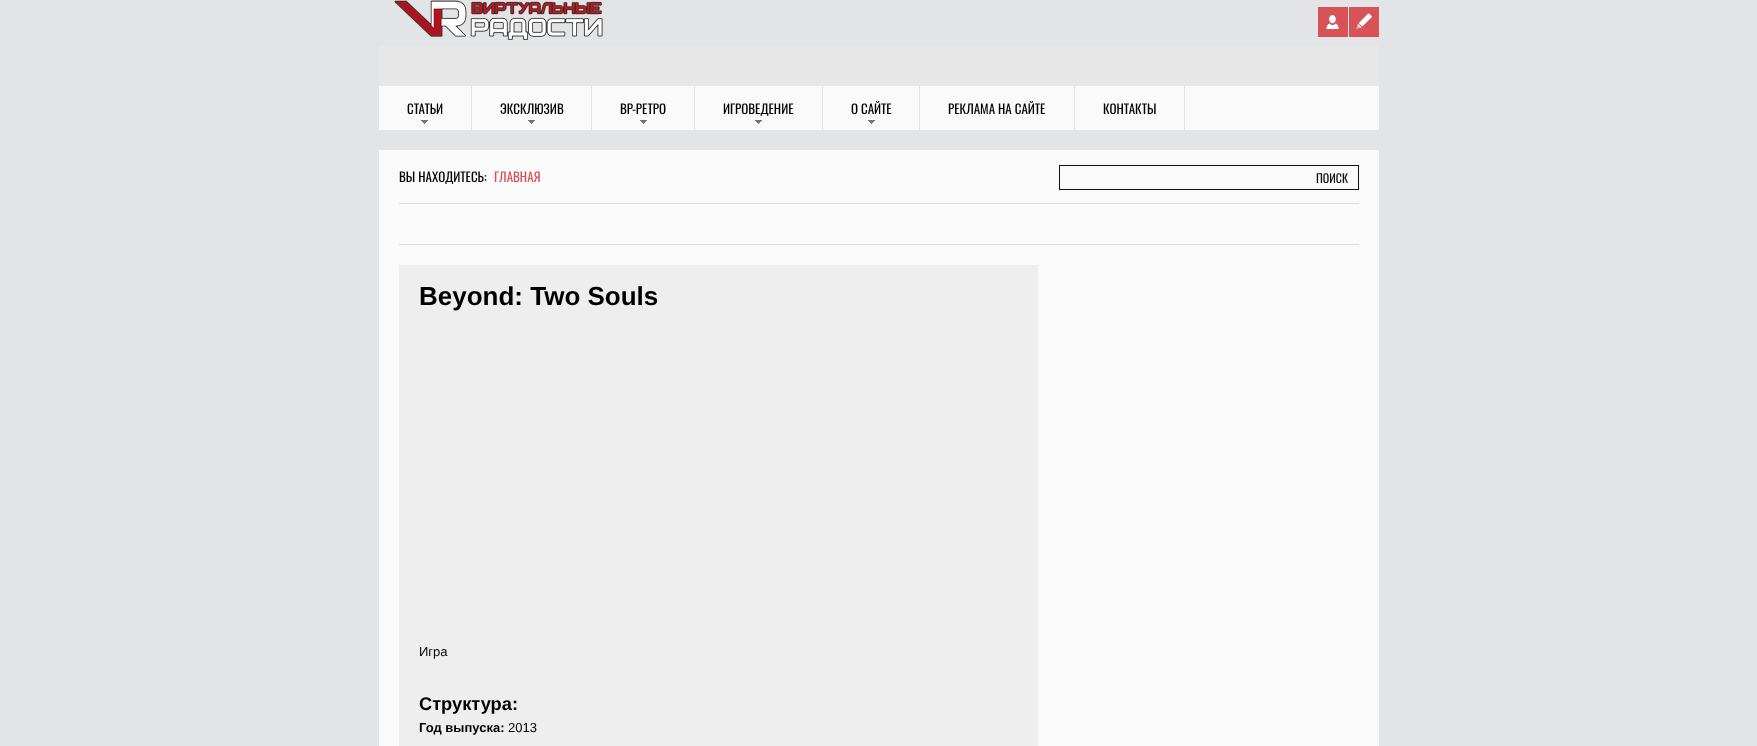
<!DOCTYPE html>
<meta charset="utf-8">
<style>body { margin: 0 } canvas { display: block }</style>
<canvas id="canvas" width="1757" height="746"></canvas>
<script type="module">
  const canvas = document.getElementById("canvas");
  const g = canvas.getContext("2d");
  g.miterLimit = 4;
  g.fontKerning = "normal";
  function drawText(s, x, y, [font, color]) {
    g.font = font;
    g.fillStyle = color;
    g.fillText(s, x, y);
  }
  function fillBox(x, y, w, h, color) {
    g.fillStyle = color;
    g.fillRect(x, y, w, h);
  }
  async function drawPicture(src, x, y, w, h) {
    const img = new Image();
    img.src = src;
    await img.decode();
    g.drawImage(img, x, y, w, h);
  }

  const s1 = ["13px Oswald", "#000000"];
  const s2 = ["13px Oswald", "#D85357"];
  const s3 = ["12px Oswald", "#111111"];
  const s4 = ["bold 26px Liberation Sans", "#000000"];
  const s5 = ["13px Liberation Sans", "#000000"];
  const s6 = ["bold 18.25px Liberation Sans", "#000000"];
  const s7 = ["bold 13px Liberation Sans", "#000000"];

  fillBox(0, 0, 1757, 746, "#E3E4E5");
  await drawPicture("pic1.png", 394, 0, 209, 40);
  fillBox(1318, 7, 30, 30, "#D85357");
  await drawPicture("pic2.png", 1326, 15, 13, 14);
  fillBox(1349, 7, 30, 30, "#D85357");
  await drawPicture("pic3.png", 1356, 13, 16, 16);
  fillBox(379, 46, 1000, 40, "#E7E7E7");
  fillBox(379, 86, 1000, 44, "#FAFAFA");
  fillBox(471, 86, 1, 44, "#E3E4E5");
  await drawPicture("pic4.png", 421, 120, 7, 4);
  drawText("СТАТЬИ", 407, 114, s1);
  fillBox(591, 86, 1, 44, "#E3E4E5");
  await drawPicture("pic4.png", 528, 120, 7, 4);
  drawText("ЭКСКЛЮЗИВ", 500, 114, s1);
  fillBox(694, 86, 1, 44, "#E3E4E5");
  await drawPicture("pic4.png", 640, 120, 7, 4);
  drawText("ВР-РЕТРО", 620, 114, s1);
  fillBox(822, 86, 1, 44, "#E3E4E5");
  await drawPicture("pic4.png", 755, 120, 7, 4);
  drawText("ИГРОВЕДЕНИЕ", 723, 114, s1);
  fillBox(919, 86, 1, 44, "#E3E4E5");
  await drawPicture("pic4.png", 868, 120, 7, 4);
  drawText("О САЙТЕ", 851, 114, s1);
  fillBox(1074, 86, 1, 44, "#E3E4E5");
  drawText("РЕКЛАМА НА САЙТЕ", 948, 114, s1);
  fillBox(1184, 86, 1, 44, "#E3E4E5");
  drawText("КОНТАКТЫ", 1103, 114, s1);
  fillBox(379, 150, 1000, 596, "#FAFAFA");
  drawText("ВЫ НАХОДИТЕСЬ:", 399, 182, s1);
  drawText("ГЛАВНАЯ", 494, 182, s2);
  g.strokeStyle = "#111111";
  g.strokeRect(1059.5, 165.5, 299, 24);
  drawText("ПОИСК", 1316, 183, s3);
  fillBox(399, 244, 960, 1, "#DDDDDD");
  fillBox(399, 203, 960, 1, "#DDDDDD");
  fillBox(399, 265, 639, 481, "#EEEEEE");
  drawText("Beyond: Two Souls", 419, 305, s4);
  drawText("Игра", 419, 656, s5);
  drawText("Структура:", 419, 710, s6);
  drawText("Год выпуска:", 419, 732, s7);
  drawText("2013", 508, 732, s5);
</script>
